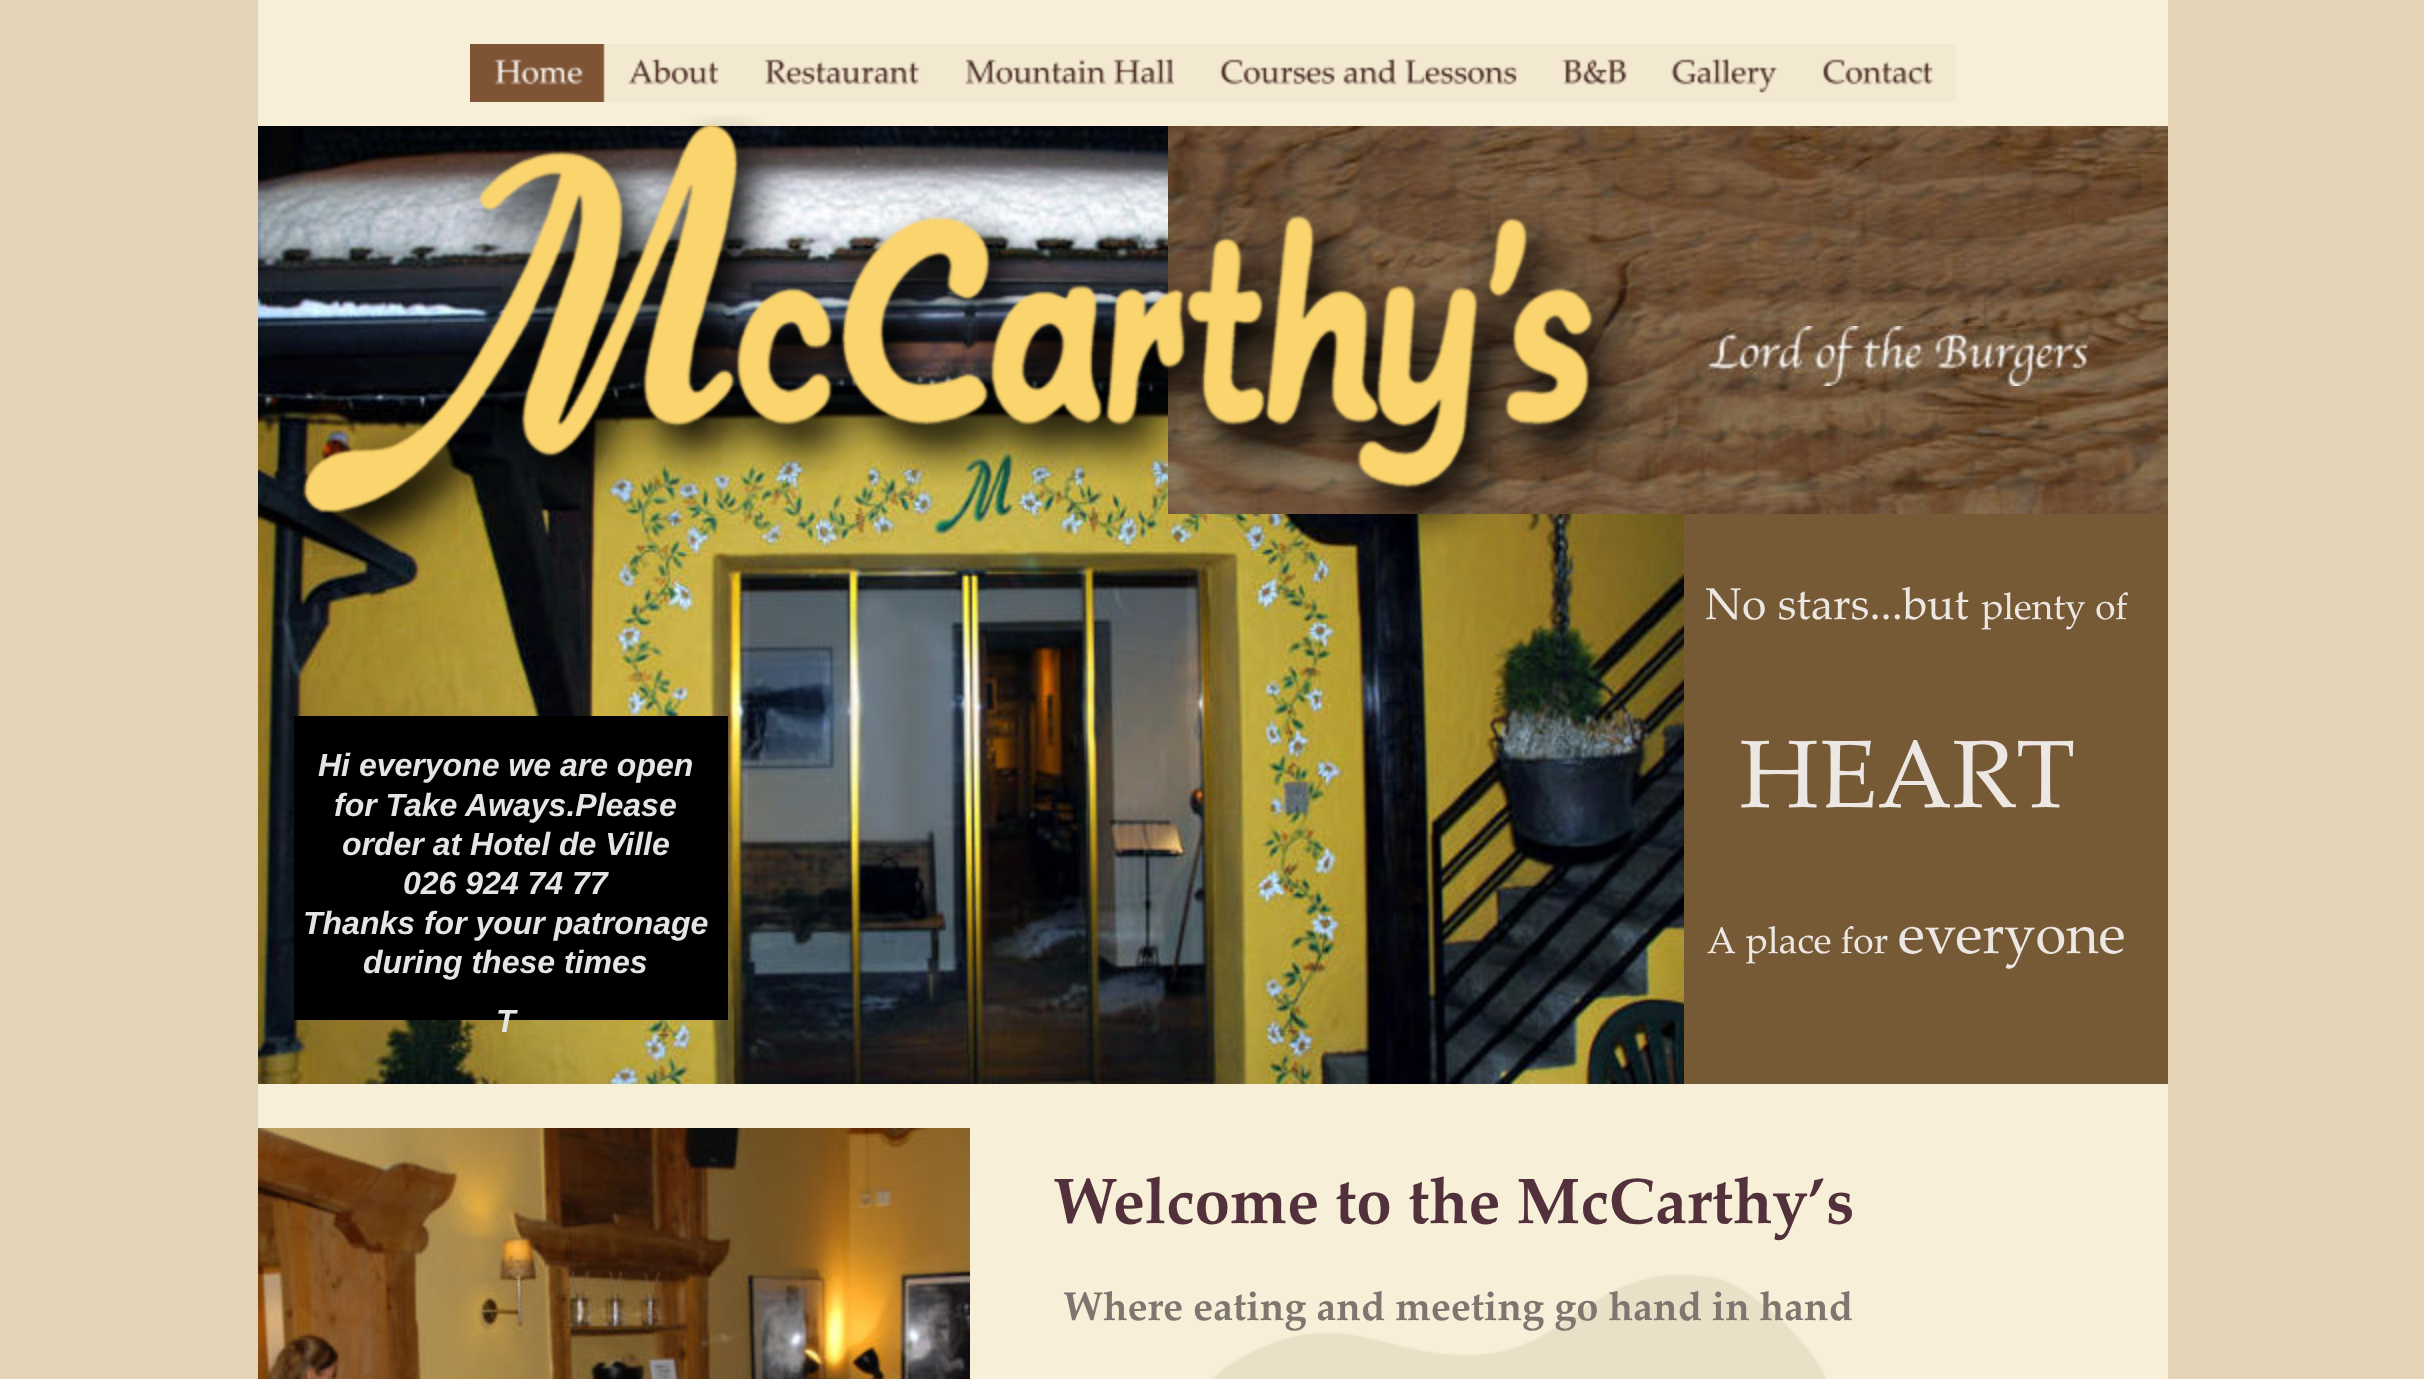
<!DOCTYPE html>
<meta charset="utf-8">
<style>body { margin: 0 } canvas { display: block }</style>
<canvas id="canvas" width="2424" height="1379"></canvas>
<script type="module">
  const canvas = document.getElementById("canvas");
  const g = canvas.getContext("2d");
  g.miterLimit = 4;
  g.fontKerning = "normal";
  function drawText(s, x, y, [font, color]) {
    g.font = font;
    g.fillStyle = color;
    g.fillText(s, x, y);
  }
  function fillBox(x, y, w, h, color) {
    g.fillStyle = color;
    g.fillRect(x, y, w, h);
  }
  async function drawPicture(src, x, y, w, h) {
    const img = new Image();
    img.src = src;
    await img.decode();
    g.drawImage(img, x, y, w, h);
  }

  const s1 = ["44.5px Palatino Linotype", "#ECE7E3"];
  const s2 = ["37px Palatino Linotype", "#ECE7E3"];
  const s3 = ["96px Palatino Linotype", "#ECE7E3"];
  const s4 = ["italic bold 32px Liberation Sans", "#E5E5E5"];
  const s5 = ["37.25px Palatino Linotype", "#ECE7E3"];
  const s6 = ["56px Palatino Linotype", "#ECE7E3"];
  const s7 = ["bold 64px Palatino Linotype", "#52313C"];
  const s8 = ["bold 40px Palatino Linotype", "#7F766F"];

  fillBox(0, 0, 2424, 1379, "#E4D4B5");
  fillBox(258, 0, 1910, 1379, "#F7EFD7");
  await drawPicture("pic2.png", 603, 44, 1, 58);
  await drawPicture("pic3.png", 604, 44, 136, 58);
  await drawPicture("pic1.png", 470, 44, 135, 58);
  await drawPicture("pic4.png", 740, 44, 202, 58);
  await drawPicture("pic5.png", 942, 44, 254, 58);
  await drawPicture("pic6.png", 1196, 44, 342, 58);
  await drawPicture("pic7.png", 1538, 44, 110, 58);
  await drawPicture("pic8.png", 1648, 44, 150, 58);
  await drawPicture("pic9.png", 1798, 44, 158, 58);
  await drawPicture("pic11.png", 258, 126, 1426, 958);
  await drawPicture("pic12.png", 1168, 126, 1000, 388);
  await drawPicture("pic10.png", 298, 115, 1338, 451);
  await drawPicture("pic13.png", 1708, 326, 380, 60);
  fillBox(1684, 514, 484, 570, "#765A36");
  drawText("No stars...but", 1705, 619, s1);
  drawText("plenty of", 1981, 619, s2);
  fillBox(294, 716, 434, 304, "#000000");
  drawText("HEART", 1739, 807, s3);
  drawText("Hi everyone we are open", 318, 776, s4);
  drawText("for Take Aways.Please", 334, 816, s4);
  drawText("order at Hotel de Ville", 342, 855, s4);
  drawText("026 924 74 77", 403, 894, s4);
  drawText("Thanks for your patronage", 303, 934, s4);
  drawText("during these times", 363, 973, s4);
  drawText("T", 496, 1032, s4);
  drawText("A place for", 1707, 953, s5);
  drawText("everyone", 1898, 953, s6);
  await drawPicture("pic14.png", 258, 1128, 712, 251);
  drawText("Welcome to the McCarthy’s", 1053, 1223, s7);
  await drawPicture("pic15.png", 1211, 1274, 615, 105);
  drawText("Where eating and meeting go hand in hand", 1063, 1320, s8);
</script>
